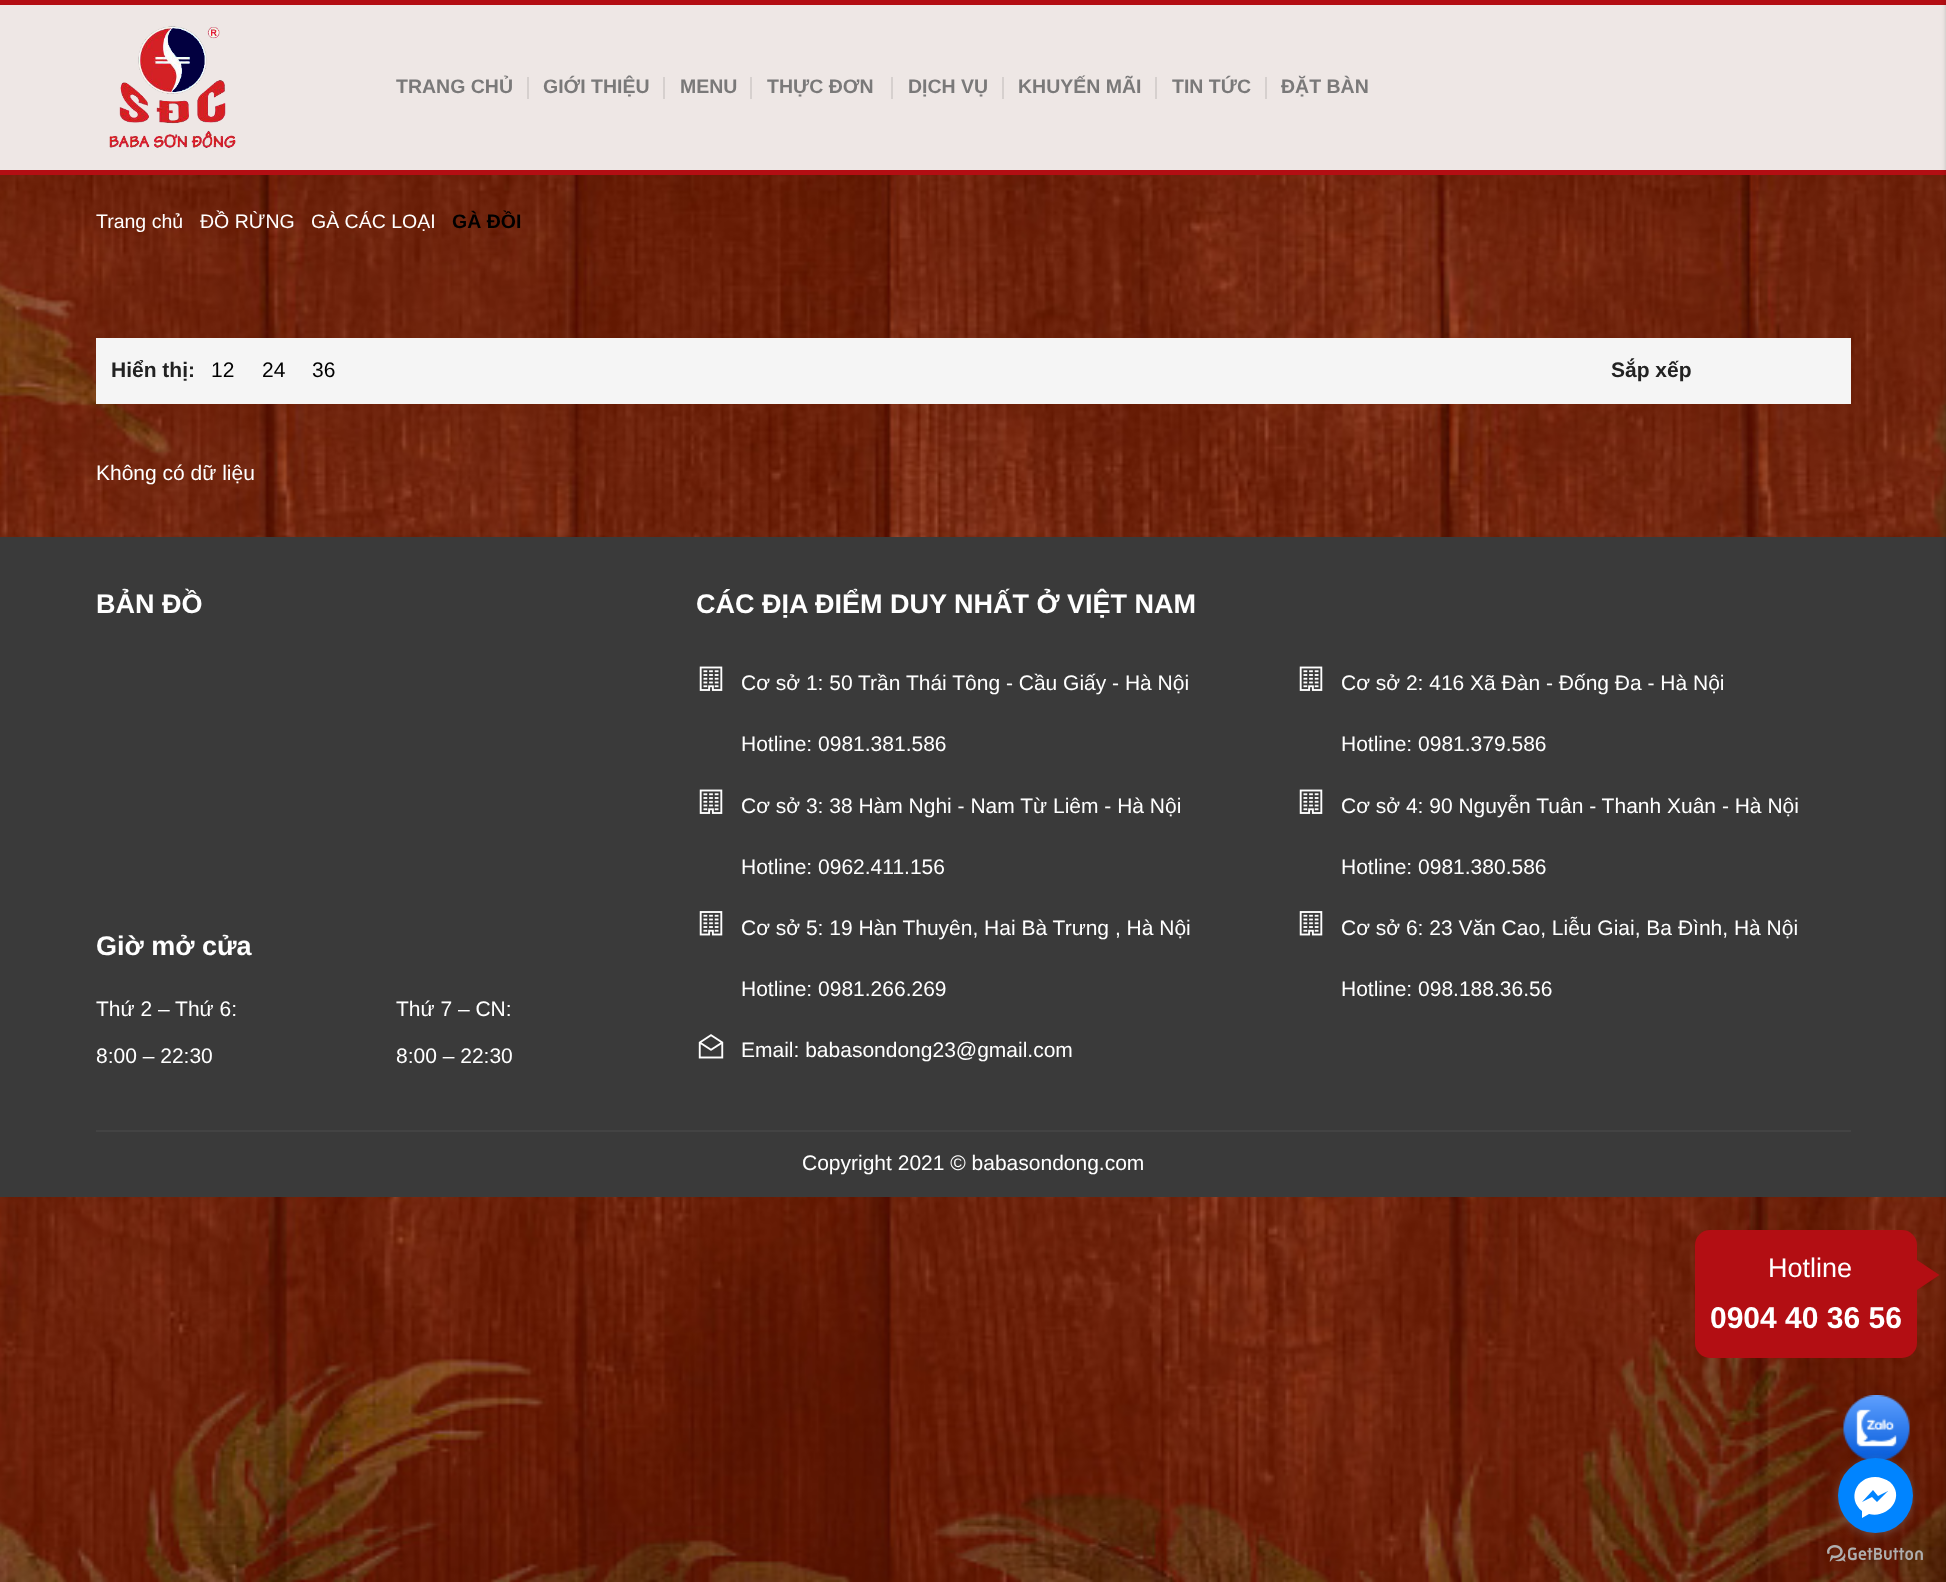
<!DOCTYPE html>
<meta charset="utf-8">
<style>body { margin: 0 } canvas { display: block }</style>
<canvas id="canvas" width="1946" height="1582"></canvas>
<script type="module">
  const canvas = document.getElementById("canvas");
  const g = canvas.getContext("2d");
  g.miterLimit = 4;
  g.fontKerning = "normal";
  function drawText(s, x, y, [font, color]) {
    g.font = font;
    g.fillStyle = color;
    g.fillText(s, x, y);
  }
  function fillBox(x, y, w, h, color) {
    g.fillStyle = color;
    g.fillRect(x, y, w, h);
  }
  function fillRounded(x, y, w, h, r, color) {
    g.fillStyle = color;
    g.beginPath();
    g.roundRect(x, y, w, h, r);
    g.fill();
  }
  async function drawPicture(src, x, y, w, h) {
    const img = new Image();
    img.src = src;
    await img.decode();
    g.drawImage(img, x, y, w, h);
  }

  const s1 = ["bold 19.5px Liberation Sans", "#7A7979"];
  const s2 = ["19.5px Liberation Sans", "#FFFFFF"];
  const s3 = ["bold 19.5px Liberation Sans", "#000000"];
  const s4 = ["bold 21px Liberation Sans", "#222222"];
  const s5 = ["21px Liberation Sans", "#000000"];
  const s6 = ["21px Liberation Sans", "#FFFFFF"];
  const s7 = ["bold 27px Liberation Sans", "#FFFFFF"];
  const s8 = ["27px Liberation Sans", "#FFFFFF"];
  const s9 = ["bold 30px Liberation Sans", "#FFFFFF"];

  fillBox(0, 0, 1946, 1582, "#FFFFFF");
  await drawPicture("pic1.png", 0, 175, 1946, 1407);
  fillBox(0, 5, 1946, 165, "#EEE7E5");
  fillBox(0, 0, 1946, 5, "#B30E13");
  fillBox(0, 170, 1946, 5, "#B30E13");
  await drawPicture("pic2.png", 109, 26, 127, 122);
  drawText("TRANG CHỦ", 396, 93, s1);
  fillBox(527, 77, 2, 22, "#D6D0CE");
  drawText("GIỚI THIỆU", 543, 93, s1);
  fillBox(663, 77, 2, 22, "#D6D0CE");
  drawText("MENU", 680, 93, s1);
  fillBox(750, 77, 2, 22, "#D6D0CE");
  drawText("THỰC ĐƠN", 767, 93, s1);
  fillBox(891, 77, 2, 22, "#D6D0CE");
  drawText("DỊCH VỤ", 908, 93, s1);
  fillBox(1002, 77, 2, 22, "#D6D0CE");
  drawText("KHUYẾN MÃI", 1018, 93, s1);
  fillBox(1155, 77, 2, 22, "#D6D0CE");
  drawText("TIN TỨC", 1172, 93, s1);
  fillBox(1265, 77, 2, 22, "#D6D0CE");
  drawText("ĐẶT BÀN", 1281, 93, s1);
  fillBox(0, 537, 1946, 660, "#3A3A3A");
  g.fillStyle = "#B30E13";
  g.beginPath();
  g.moveTo(1917, 1290);
  g.lineTo(1917, 1260);
  g.lineTo(1939.5, 1275);
  g.closePath();
  g.fill();
  g.fillStyle = "rgba(0, 0, 0, 0.2)";
  g.filter = "blur(2px)";
  g.beginPath();
  g.rect(1946, 0, 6, 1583);
  g.fill();
  g.filter = "none";
  drawText("Trang chủ", 96, 228, s2);
  drawText("ĐỒ RỪNG", 200, 228, s2);
  drawText("GÀ CÁC LOẠI", 311, 228, s2);
  drawText("GÀ ĐỒI", 452, 228, s3);
  fillBox(96, 338, 1755, 66, "#F5F5F5");
  drawText("Hiển thị:", 111, 377, s4);
  drawText("12", 211, 377, s5);
  drawText("24", 262, 377, s5);
  drawText("36", 312, 377, s5);
  drawText("Sắp xếp", 1611, 377, s4);
  drawText("Không có dữ liệu", 96, 480, s6);
  drawText("BẢN ĐỒ", 96, 613, s7);
  drawText("Giờ mở cửa", 96, 955, s7);
  drawText("Thứ 2 – Thứ 6:", 96, 1016, s6);
  drawText("8:00 – 22:30", 96, 1063, s6);
  drawText("Thứ 7 – CN:", 396, 1016, s6);
  drawText("8:00 – 22:30", 396, 1063, s6);
  drawText("CÁC ĐỊA ĐIỂM DUY NHẤT Ở VIỆT NAM", 696, 613, s7);
  await drawPicture("pic3.png", 699, 666, 24, 25);
  drawText("Cơ sở 1: 50 Trần Thái Tông - Cầu Giấy - Hà Nội", 741, 690, s6);
  drawText("Hotline: 0981.381.586", 741, 751, s6);
  await drawPicture("pic3.png", 1299, 666, 24, 25);
  drawText("Cơ sở 2: 416 Xã Đàn - Đống Đa - Hà Nội", 1341, 690, s6);
  drawText("Hotline: 0981.379.586", 1341, 751, s6);
  await drawPicture("pic3.png", 699, 789, 24, 25);
  drawText("Cơ sở 3: 38 Hàm Nghi - Nam Từ Liêm - Hà Nội", 741, 813, s6);
  drawText("Hotline: 0962.411.156", 741, 874, s6);
  await drawPicture("pic3.png", 1299, 789, 24, 25);
  drawText("Cơ sở 4: 90 Nguyễn Tuân - Thanh Xuân - Hà Nội", 1341, 813, s6);
  drawText("Hotline: 0981.380.586", 1341, 874, s6);
  await drawPicture("pic4.png", 699, 911, 24, 25);
  drawText("Cơ sở 5: 19 Hàn Thuyên, Hai Bà Trưng , Hà Nội", 741, 935, s6);
  drawText("Hotline: 0981.266.269", 741, 996, s6);
  await drawPicture("pic4.png", 1299, 911, 24, 25);
  drawText("Cơ sở 6: 23 Văn Cao, Liễu Giai, Ba Đình, Hà Nội", 1341, 935, s6);
  drawText("Hotline: 098.188.36.56", 1341, 996, s6);
  await drawPicture("pic5.png", 698, 1034, 26, 25);
  drawText("Email: babasondong23@gmail.com", 741, 1057, s6);
  fillBox(96, 1130, 1755, 2, "#434343");
  drawText("Copyright 2021 © babasondong.com", 802, 1170, s6);
  fillRounded(1695, 1230, 222, 128, 15, "#B30E13");
  drawText("Hotline", 1768, 1277, s8);
  drawText("0904 40 36 56", 1710, 1328, s9);
  await drawPicture("pic6.png", 1843, 1395, 67, 65);
  await drawPicture("pic7.png", 1827, 1545, 96, 17);
  g.fillStyle = "rgba(136, 136, 136, 0.4)";
  g.filter = "blur(5px)";
  g.beginPath();
  g.roundRect(1838, 1460, 75, 75, 37.5);
  g.fill();
  g.filter = "none";
  g.fillStyle = "#0084FF";
  g.beginPath();
  g.arc(1875.5, 1495.5, 37.5, 0, Math.PI * 2);
  g.fill();
  g.fillStyle = "#FFFFFF";
  g.beginPath();
  g.moveTo(1875, 1477);
  g.bezierCurveTo(1856, 1477, 1847, 1499, 1862, 1511);
  g.lineTo(1862, 1518);
  g.lineTo(1869, 1514);
  g.bezierCurveTo(1888, 1519, 1906, 1497, 1890, 1482);
  g.bezierCurveTo(1886, 1479, 1880, 1477, 1875, 1477);
  g.closePath();
  g.moveTo(1877, 1502);
  g.lineTo(1872, 1497);
  g.lineTo(1862, 1502);
  g.lineTo(1873, 1490);
  g.lineTo(1878, 1496);
  g.lineTo(1888, 1491);
  g.closePath();
  g.fill();
</script>
